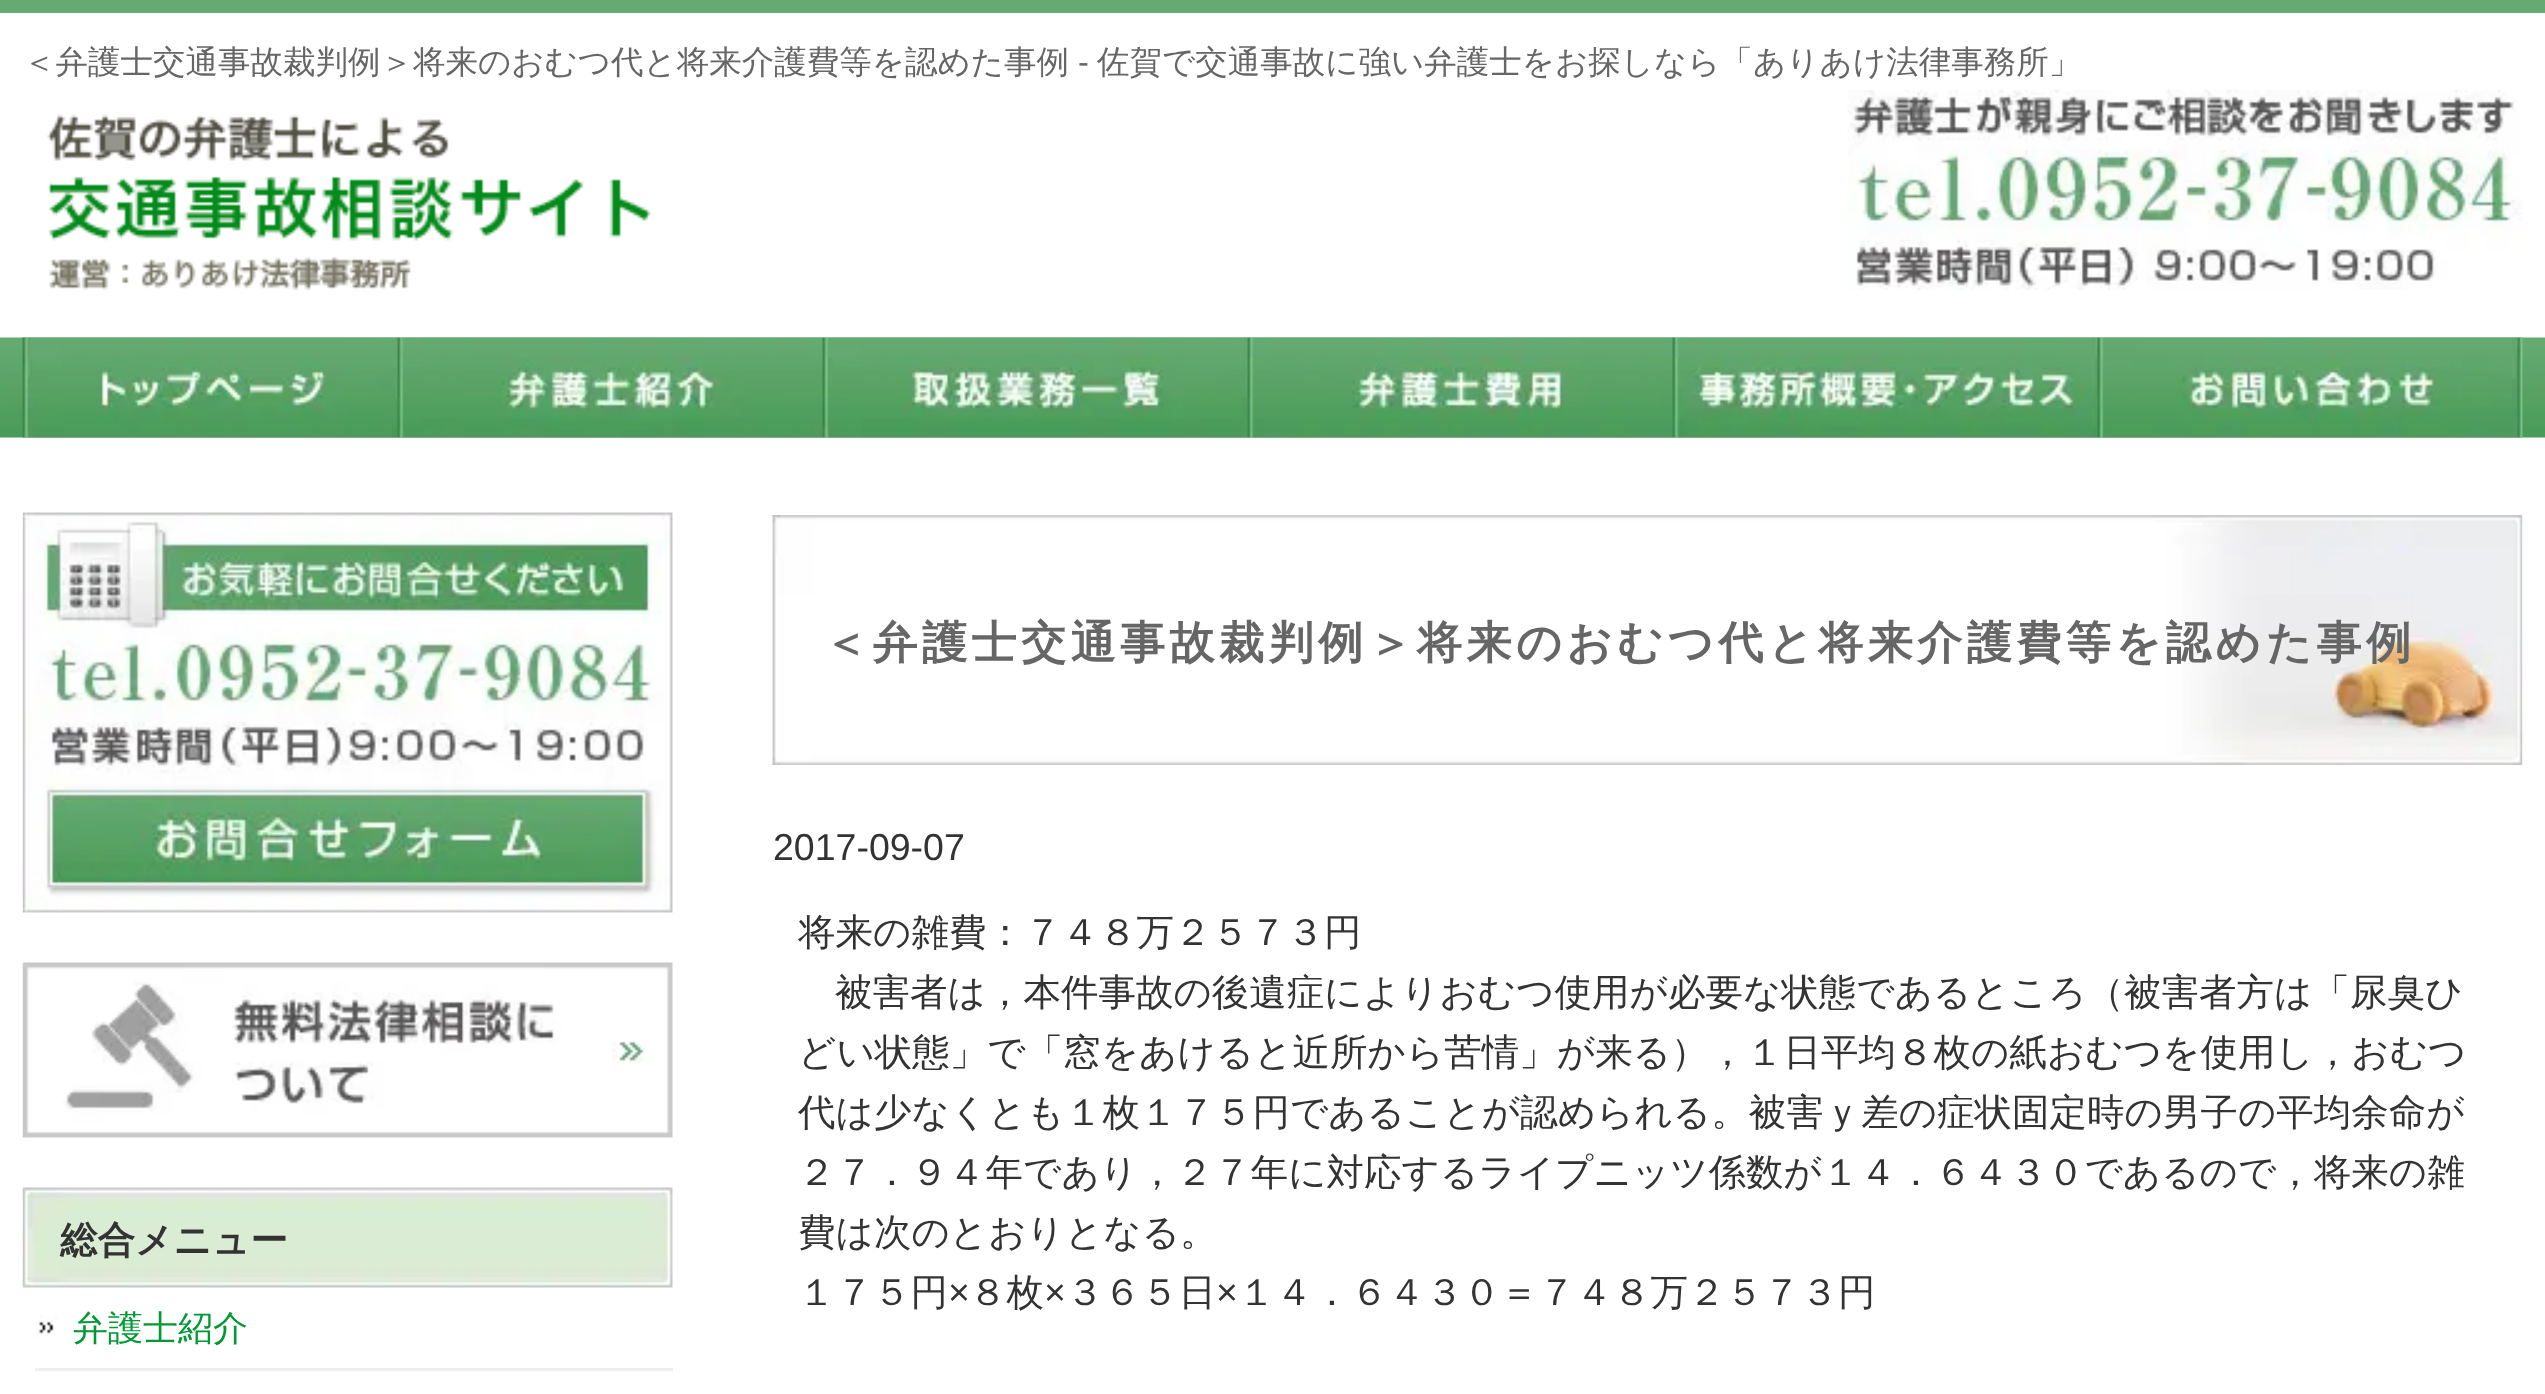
<!DOCTYPE html>
<meta charset="utf-8">
<style>body { margin: 0 } canvas { display: block }</style>
<canvas id="canvas" width="2545" height="1394"></canvas>
<script type="module">
  const canvas = document.getElementById("canvas");
  const g = canvas.getContext("2d");
  g.miterLimit = 4;
  g.fontKerning = "normal";
  function drawText(s, x, y, [font, color]) {
    g.font = font;
    g.fillStyle = color;
    g.fillText(s, x, y);
  }
  function fillBox(x, y, w, h, color) {
    g.fillStyle = color;
    g.fillRect(x, y, w, h);
  }
  async function drawPicture(src, x, y, w, h) {
    const img = new Image();
    img.src = src;
    await img.decode();
    g.drawImage(img, x, y, w, h);
  }

  const s1 = ["500 32.5px WenQuanYi Zen Hei", "#666666"];
  const s2 = ["32.5px Liberation Sans", "#666666"];
  const s3 = ["bold 37.5px WenQuanYi Zen Hei", "#333333"];
  const s4 = ["500 35px WenQuanYi Zen Hei", "#009933"];
  const s5 = ["bold 45px WenQuanYi Zen Hei", "#666666"];
  const s6 = ["37.5px Liberation Sans", "#333333"];
  const s7 = ["500 37.5px WenQuanYi Zen Hei", "#333333"];

  fillBox(0, 0, 2545, 1394, "#FFFFFF");
  fillBox(0, 0, 2545, 13, "#66AA72");
  drawText("＜弁護士交通事故裁判例＞将来のおむつ代と将来介護費等を認めた事例", 23, 73, s1);
  drawText("-", 1078, 73, s2);
  drawText("佐賀で交通事故に強い弁護士をお探しなら「ありあけ法律事務所」", 1097, 73, s1);
  await drawPicture("pic1.png", 47, 114, 604, 176);
  await drawPicture("pic2.png", 1847, 90, 676, 200);
  await drawPicture("pic3.png", 0, 337, 2545, 101);
  await drawPicture("pic4.png", 22, 337, 376, 101);
  await drawPicture("pic5.png", 397, 337, 426, 101);
  await drawPicture("pic6.png", 822, 337, 426, 101);
  await drawPicture("pic7.png", 1247, 337, 426, 101);
  await drawPicture("pic8.png", 1672, 337, 426, 101);
  await drawPicture("pic9.png", 2097, 337, 426, 101);
  await drawPicture("pic10.png", 22, 512, 651, 401);
  await drawPicture("pic11.png", 22, 962, 651, 176);
  await drawPicture("pic12.png", 22, 1187, 651, 101);
  drawText("総合メニュー", 60, 1253, s3);
  fillBox(35, 1368, 638, 3, "#EFEFEF");
  await drawPicture("pic13.png", 35, 1315, 22, 22);
  drawText("弁護士紹介", 73, 1340, s4);
  await drawPicture("pic14.png", 772, 515, 1751, 250);
  g.letterSpacing = "4.5px";
  drawText("＜弁護士交通事故裁判例＞将来のおむつ代と将来介護費等を認めた事例", 823, 658, s5);
  g.letterSpacing = "0px";
  drawText("2017-09-07", 773, 860, s6);
  drawText("将来の雑費：７４８万２５７３円", 798, 945, s7);
  drawText("被害者は，本件事故の後遺症によりおむつ使用が必要な状態であるところ（被害者方は「尿臭ひ", 835, 1005, s7);
  drawText("どい状態」で「窓をあけると近所から苦情」が来る），１日平均８枚の紙おむつを使用し，おむつ", 798, 1065, s7);
  drawText("代は少なくとも１枚１７５円であることが認められる。被害ｙ差の症状固定時の男子の平均余命が", 798, 1125, s7);
  drawText("２７．９４年であり，２７年に対応するライプニッツ係数が１４．６４３０であるので，将来の雑", 798, 1185, s7);
  drawText("費は次のとおりとなる。", 798, 1245, s7);
  drawText("１７５円", 798, 1305, s7);
  drawText("×", 948, 1305, s6);
  drawText("８枚", 969, 1305, s7);
  drawText("×", 1044, 1305, s6);
  drawText("３６５日", 1066, 1305, s7);
  drawText("×", 1216, 1305, s6);
  drawText("１４．６４３０＝７４８万２５７３円", 1238, 1305, s7);
</script>
